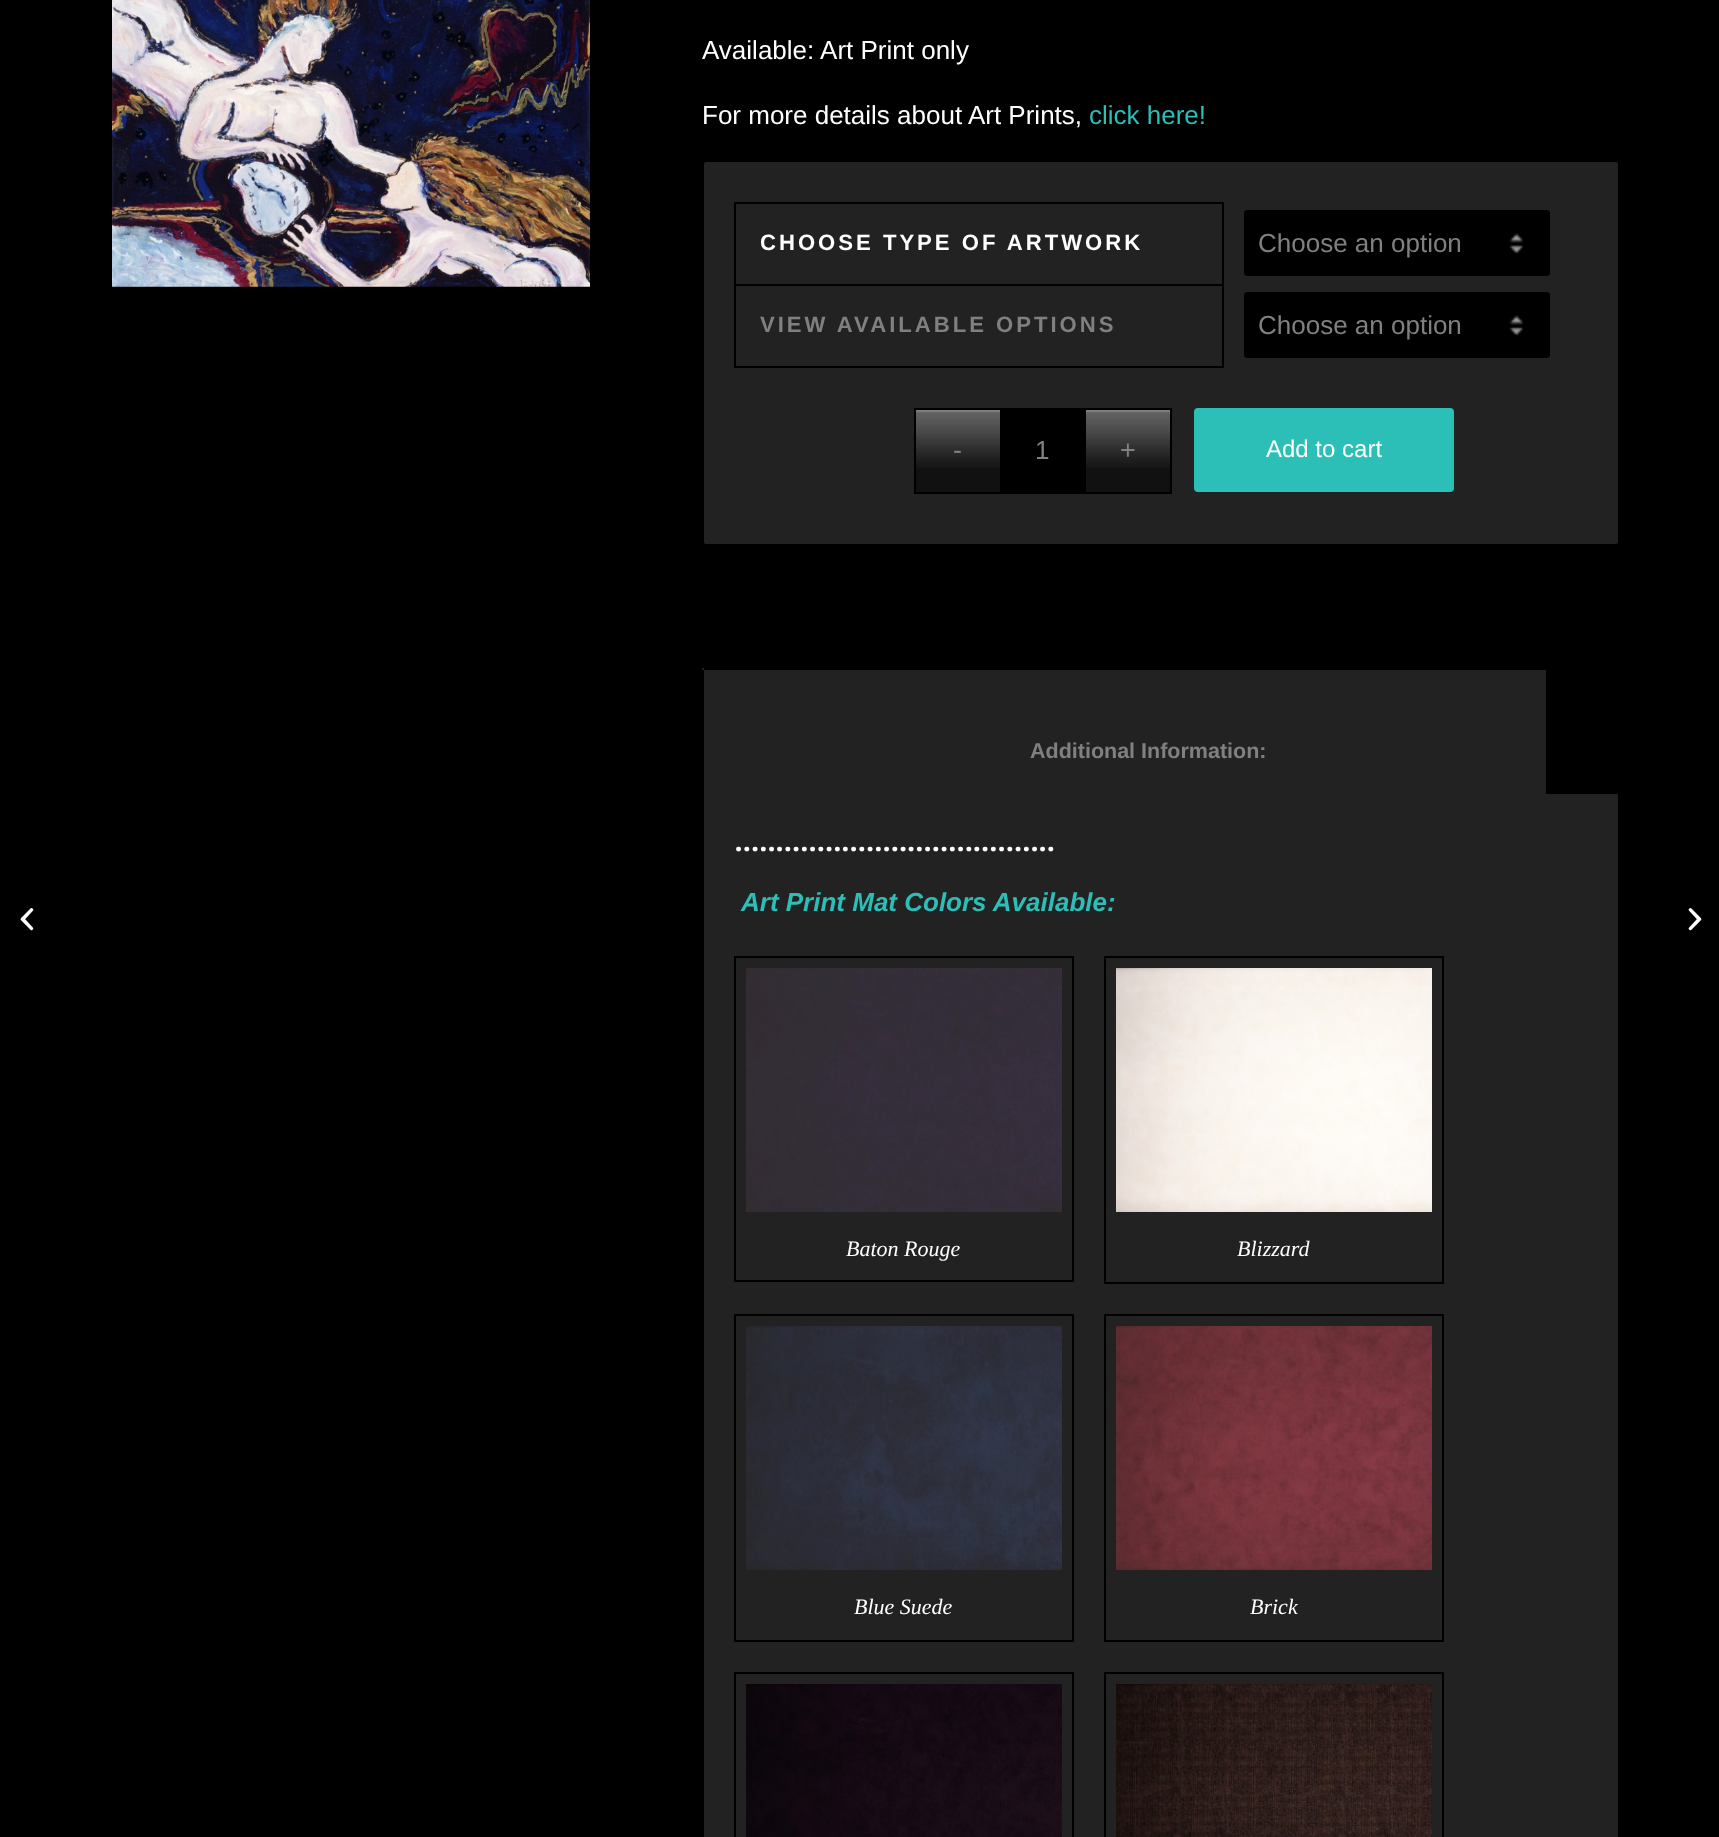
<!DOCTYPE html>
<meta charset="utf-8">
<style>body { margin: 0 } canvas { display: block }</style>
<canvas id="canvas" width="1719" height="1837"></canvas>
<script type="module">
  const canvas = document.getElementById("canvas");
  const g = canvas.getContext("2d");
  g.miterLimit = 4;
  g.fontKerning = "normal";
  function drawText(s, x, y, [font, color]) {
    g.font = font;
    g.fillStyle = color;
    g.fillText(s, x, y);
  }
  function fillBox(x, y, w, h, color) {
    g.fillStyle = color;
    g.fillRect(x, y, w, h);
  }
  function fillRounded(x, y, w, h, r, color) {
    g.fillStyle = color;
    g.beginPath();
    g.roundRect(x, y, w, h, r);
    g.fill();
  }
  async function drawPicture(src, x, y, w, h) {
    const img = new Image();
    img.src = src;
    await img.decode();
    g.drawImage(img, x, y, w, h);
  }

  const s1 = ["26px Liberation Sans", "#FFFFFF"];
  const s2 = ["26px Liberation Sans", "#2CBFB8"];
  const s3 = ["bold 22.1px Liberation Sans", "#FFFFFF"];
  const s4 = ["26px Liberation Sans", "#808080"];
  const s5 = ["bold 22.1px Liberation Sans", "#808080"];
  const s6 = ["27px Liberation Sans", "#808080"];
  const s7 = ["24px Liberation Sans", "#FFFFFF"];
  const s8 = ["bold 21.5px Liberation Sans", "#808080"];
  const s9 = ["bold 32px Metrophobic", "#FFFFFF"];
  const s10 = ["italic bold 26px Liberation Sans", "#2CBFB8"];
  const s11 = ["italic 22px Liberation Serif", "#FFFFFF"];

  fillBox(0, 0, 1719, 1837, "#000000");
  await drawPicture("pic1.png", 20, 908, 14, 23);
  await drawPicture("pic2.png", 112, 0, 478, 291);
  drawText("Available: Art Print only", 702, 59, s1);
  drawText("For more details about Art Prints,", 702, 124, s1);
  drawText("click here!", 1089, 124, s2);
  g.fillStyle = "#222222";
  g.beginPath();
  g.roundRect(703, 161, 916, 384, 3);
  g.fill();
  g.strokeStyle = "#000000";
  g.lineWidth = 2;
  g.stroke();
  fillBox(734, 202, 490, 2, "#000000");
  fillBox(1222, 284, 2, 84, "#000000");
  fillBox(1222, 202, 2, 84, "#000000");
  fillBox(734, 366, 490, 2, "#000000");
  fillBox(734, 284, 2, 84, "#000000");
  fillBox(734, 284, 490, 2, "#000000");
  fillBox(734, 202, 2, 84, "#000000");
  g.letterSpacing = "3px";
  drawText("CHOOSE TYPE OF ARTWORK", 760, 250, s3);
  fillRounded(1244, 210, 306, 66, 4, "#000000");
  await drawPicture("pic3.png", 1509, 233, 15, 21);
  g.beginPath();
  g.roundRect(1245, 211, 304, 64, 3);
  g.stroke();
  g.letterSpacing = "0px";
  drawText("Choose an option", 1258, 252, s4);
  g.letterSpacing = "3px";
  drawText("VIEW AVAILABLE OPTIONS", 760, 332, s5);
  fillRounded(1244, 292, 306, 66, 4, "#000000");
  await drawPicture("pic3.png", 1509, 315, 15, 21);
  g.beginPath();
  g.roundRect(1245, 293, 304, 64, 3);
  g.stroke();
  g.letterSpacing = "0px";
  drawText("Choose an option", 1258, 334, s4);
  fillBox(916, 410, 84, 82, "#111111");
  await drawPicture("pic4.png", 916, 410, 84, 58);
  fillBox(1000, 408, 86, 86, "#000000");
  drawText("1", 1035, 459, s4);
  fillBox(1086, 410, 84, 82, "#111111");
  await drawPicture("pic4.png", 1086, 410, 84, 58);
  drawText("-", 953, 459, s6);
  fillBox(914, 408, 86, 2, "#000000");
  fillBox(914, 492, 86, 2, "#000000");
  fillBox(914, 408, 2, 86, "#000000");
  drawText("+", 1120, 459, s6);
  fillBox(1086, 408, 86, 2, "#000000");
  fillBox(1170, 408, 2, 86, "#000000");
  fillBox(1086, 492, 86, 2, "#000000");
  fillRounded(1194, 408, 260, 84, 4, "#2CBFB8");
  drawText("Add to cart", 1266, 457, s7);
  fillBox(702, 668, 844, 126, "#222222");
  fillBox(704, 668, 844, 2, "#000000");
  fillBox(702, 670, 2, 124, "#000000");
  drawText("Additional Information:", 1030, 758, s8);
  fillBox(704, 794, 914, 1043, "#222222");
  drawText(".......................................", 734, 851, s9);
  drawText("Art Print Mat Colors Available:", 741, 911, s10);
  g.strokeRect(735, 957, 338, 324);
  await drawPicture("pic5.png", 746, 968, 316, 244);
  drawText("Baton Rouge", 846, 1256, s11);
  g.strokeRect(1105, 957, 338, 326);
  await drawPicture("pic6.png", 1116, 968, 316, 244);
  drawText("Blizzard", 1237, 1256, s11);
  g.strokeRect(735, 1315, 338, 326);
  await drawPicture("pic7.png", 746, 1326, 316, 244);
  drawText("Blue Suede", 854, 1614, s11);
  g.strokeRect(1105, 1315, 338, 326);
  await drawPicture("pic8.png", 1116, 1326, 316, 244);
  drawText("Brick", 1250, 1614, s11);
  g.strokeRect(735, 1673, 338, 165);
  await drawPicture("pic9.png", 746, 1684, 316, 153);
  g.strokeRect(1105, 1673, 338, 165);
  await drawPicture("pic10.png", 1116, 1684, 316, 153);
  await drawPicture("pic11.png", 1688, 908, 14, 23);
</script>
